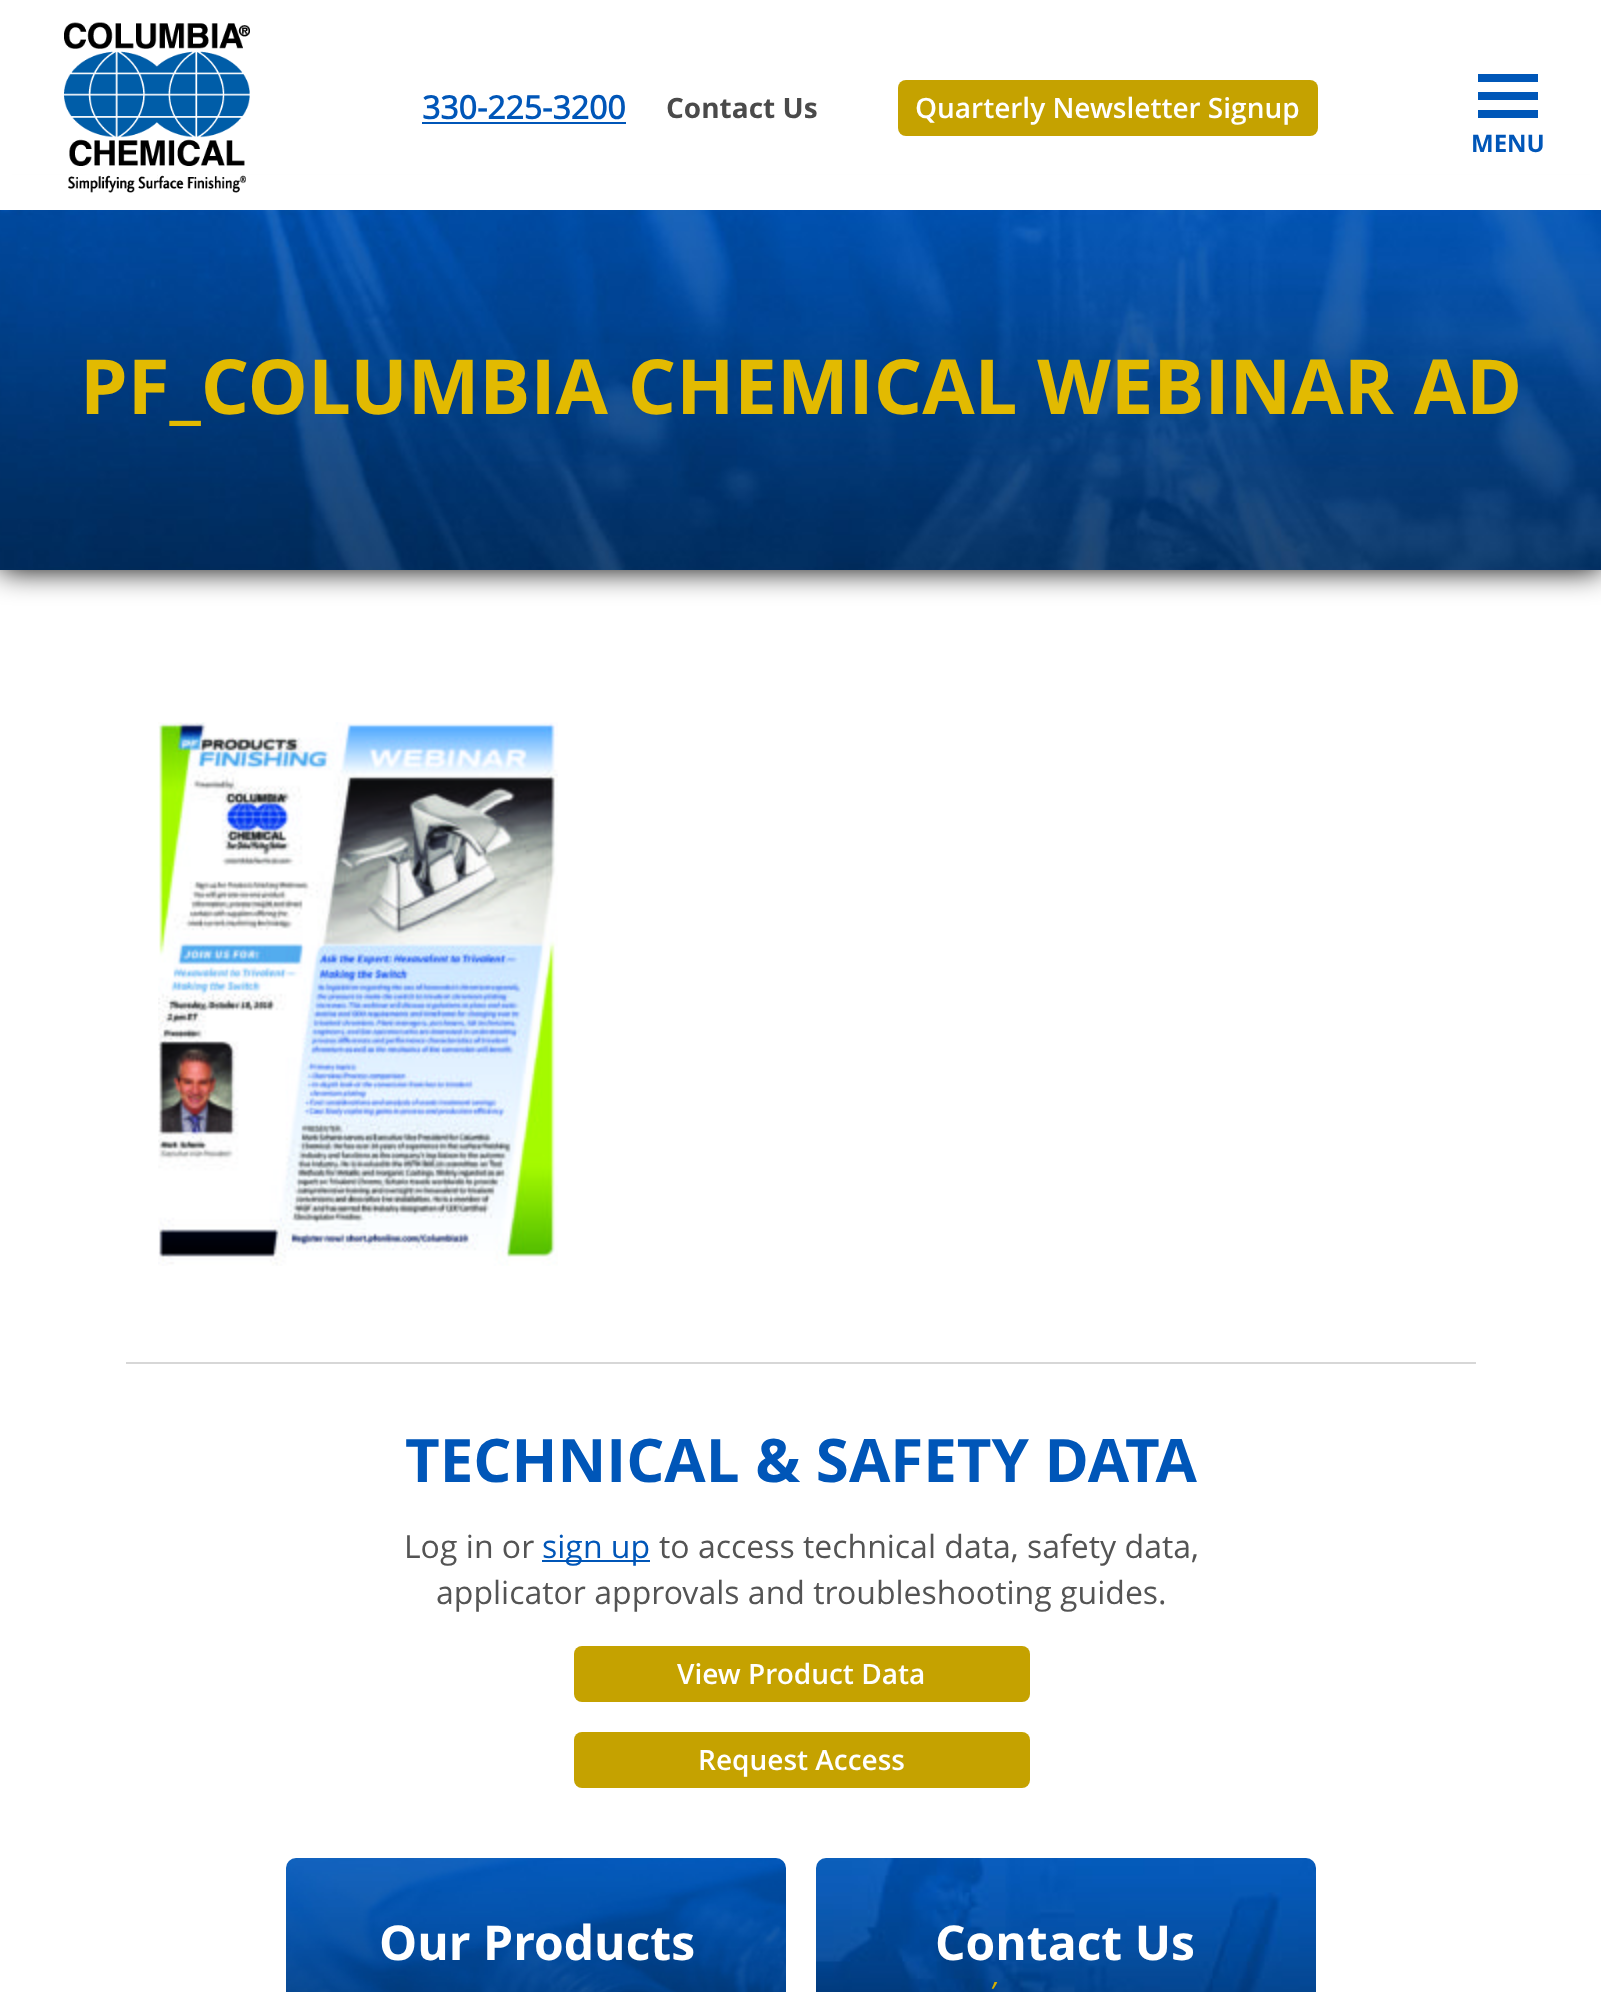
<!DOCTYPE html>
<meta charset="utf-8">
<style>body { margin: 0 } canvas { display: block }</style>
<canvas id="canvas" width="1601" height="1992"></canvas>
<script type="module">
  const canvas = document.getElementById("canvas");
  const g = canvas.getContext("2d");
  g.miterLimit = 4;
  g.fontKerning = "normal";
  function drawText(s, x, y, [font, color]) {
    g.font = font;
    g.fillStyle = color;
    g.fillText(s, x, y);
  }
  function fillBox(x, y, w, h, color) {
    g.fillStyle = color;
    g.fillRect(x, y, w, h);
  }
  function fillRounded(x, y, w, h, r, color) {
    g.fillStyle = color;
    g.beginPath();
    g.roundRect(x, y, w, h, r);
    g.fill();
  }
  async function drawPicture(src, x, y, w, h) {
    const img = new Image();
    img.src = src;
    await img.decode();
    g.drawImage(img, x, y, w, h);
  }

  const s1 = ["bold 32px 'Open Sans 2'", "#0056B8"];
  const s2 = ["bold 28px Open Sans", "#4A4A4A"];
  const s3 = ["600 28px Open Sans", "#FFFFFF"];
  const s4 = ["bold 24px Open Sans", "#0056B8"];
  const s5 = ["bold 76px Open Sans", "#E2BA01"];
  const s6 = ["bold 60px Open Sans", "#0056B8"];
  const s7 = ["32px Open Sans", "#545454"];
  const s8 = ["32px Open Sans", "#0056B8"];
  const s9 = ["bold 48px Open Sans", "#FFFFFF"];
  const s10 = ["italic 28px Open Sans", "#D5AF01"];

  fillBox(0, 0, 1601, 1992, "#FFFFFF");
  g.fillStyle = "#000000";
  g.filter = "blur(15px)";
  g.beginPath();
  g.rect(0, 210, 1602, 360);
  g.fill();
  g.filter = "none";
  fillBox(0, 175, 1601, 35, "#FFFFFF");
  await drawPicture("pic1.png", 64, 22, 186, 171);
  drawText("330-225-3200", 422, 119, s1);
  fillBox(422, 122, 204, 2, "#0056B8");
  drawText("Contact Us", 666, 118, s2);
  fillRounded(898, 80, 420, 56, 8, "#C5A200");
  drawText("Quarterly Newsletter Signup", 915, 118, s3);
  fillBox(1478, 92, 60, 8, "#0057B8");
  fillBox(1478, 74, 60, 8, "#0057B8");
  fillBox(1478, 110, 60, 8, "#0057B8");
  drawText("MENU", 1471, 152, s4);
  await drawPicture("pic2.png", 0, 210, 1601, 360);
  drawText("PF_COLUMBIA CHEMICAL WEBINAR AD", 80, 414, s5);
  await drawPicture("pic3.png", 158, 722, 400, 544);
  fillBox(126, 1362, 1350, 2, "#D7D7D7");
  drawText("TECHNICAL & SAFETY DATA", 405, 1482, s6);
  drawText("Log in or", 404, 1558, s7);
  fillBox(542, 1560, 108, 2, "#0056B8");
  drawText("sign up", 542, 1558, s8);
  drawText("to access technical data, safety data,", 659, 1558, s7);
  drawText("applicator approvals and troubleshooting guides.", 436, 1604, s7);
  fillRounded(574, 1646, 456, 56, 8, "#C5A200");
  drawText("View Product Data", 677, 1684, s3);
  fillRounded(574, 1732, 456, 56, 8, "#C5A200");
  drawText("Request Access", 698, 1770, s3);
  await drawPicture("pic4.png", 286, 1858, 500, 134);
  drawText("Our Products", 379, 1960, s9);
  await drawPicture("pic5.png", 816, 1858, 500, 134);
  drawText("Contact Us", 935, 1960, s9);
  drawText("’", 990, 2002, s10);
</script>
